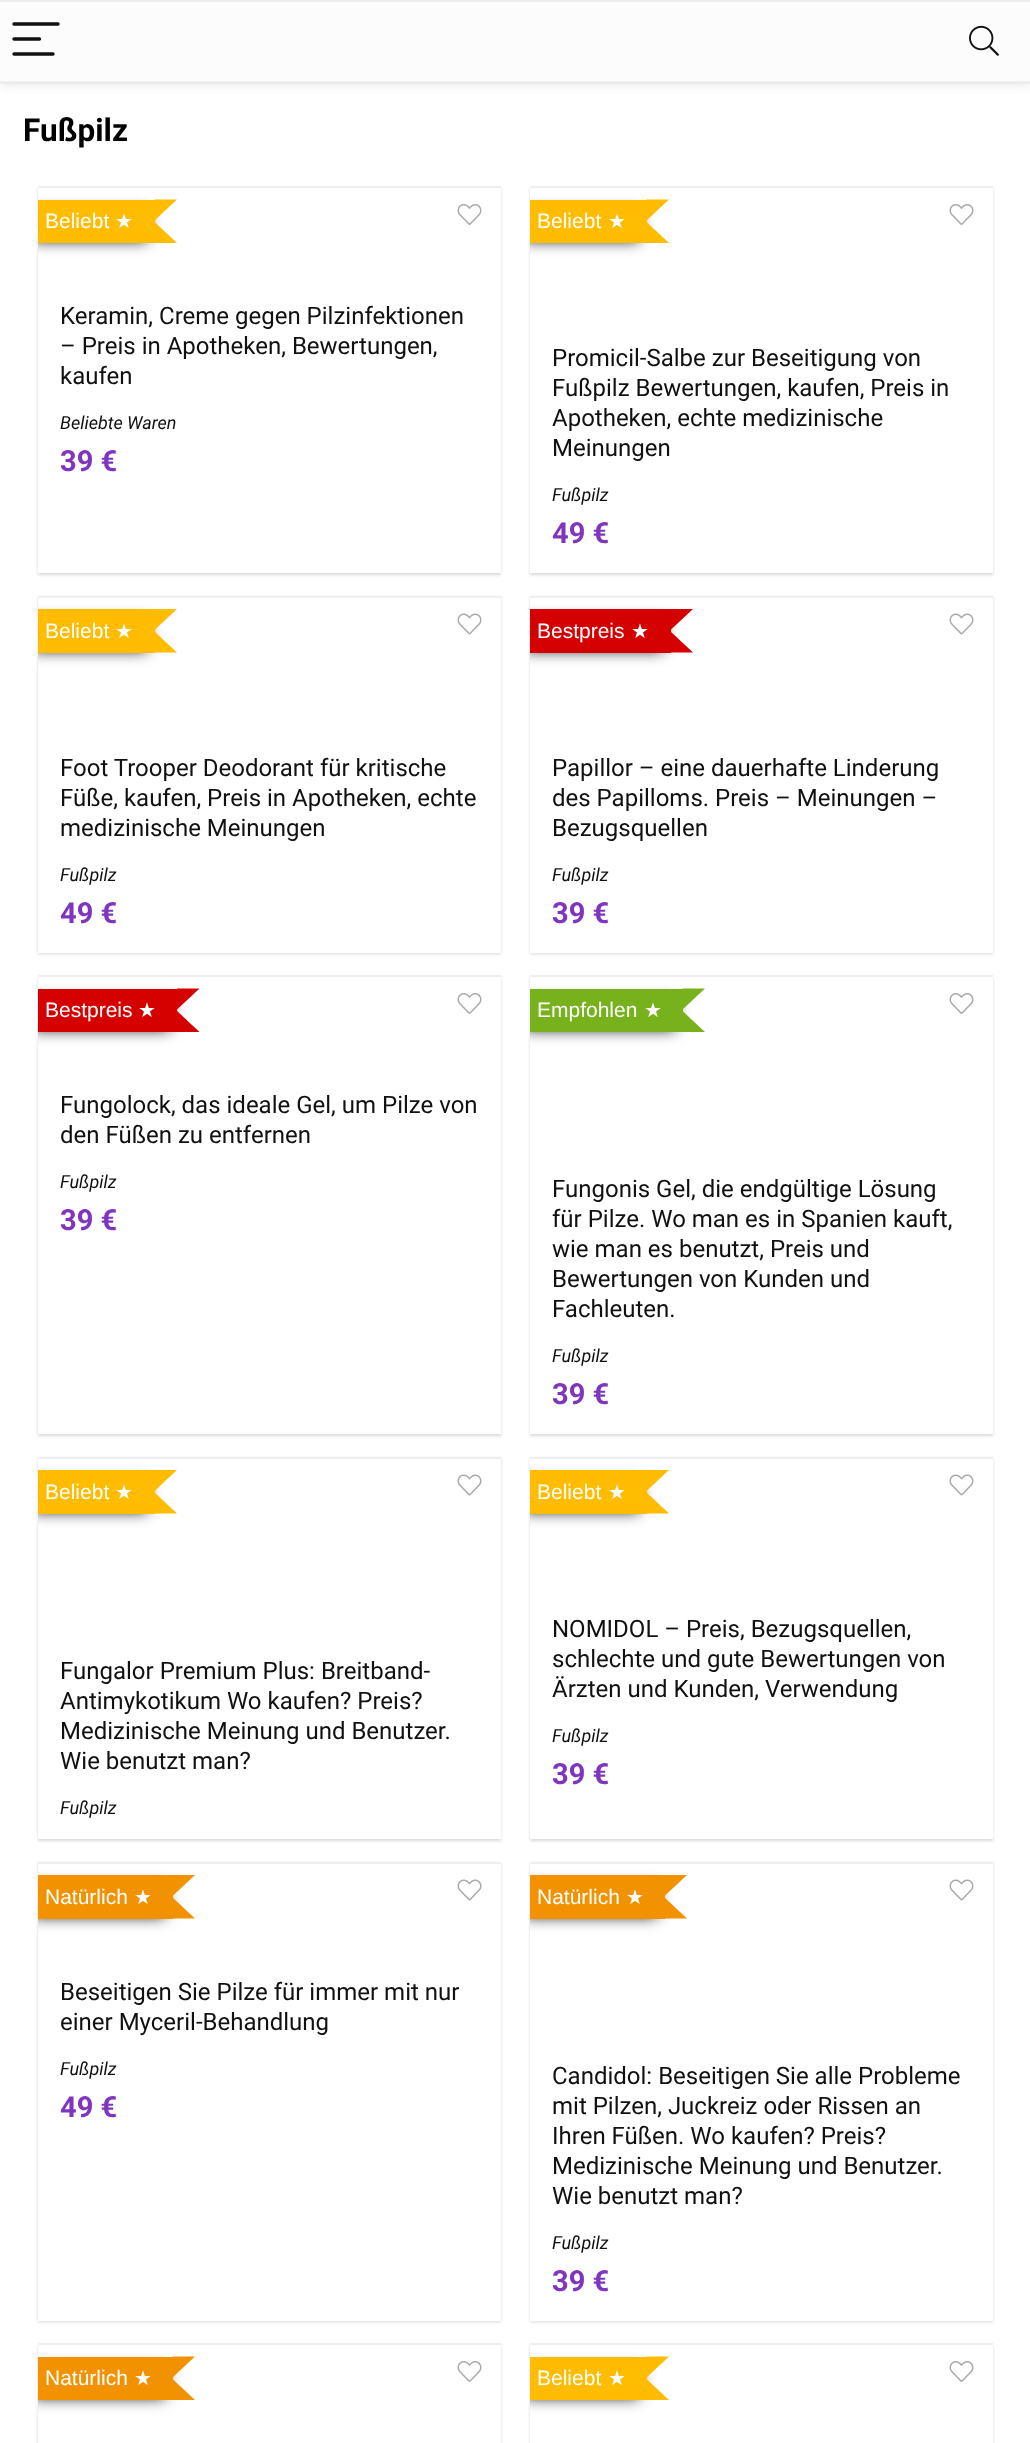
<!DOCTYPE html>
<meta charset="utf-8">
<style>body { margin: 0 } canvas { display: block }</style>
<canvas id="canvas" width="1030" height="2443"></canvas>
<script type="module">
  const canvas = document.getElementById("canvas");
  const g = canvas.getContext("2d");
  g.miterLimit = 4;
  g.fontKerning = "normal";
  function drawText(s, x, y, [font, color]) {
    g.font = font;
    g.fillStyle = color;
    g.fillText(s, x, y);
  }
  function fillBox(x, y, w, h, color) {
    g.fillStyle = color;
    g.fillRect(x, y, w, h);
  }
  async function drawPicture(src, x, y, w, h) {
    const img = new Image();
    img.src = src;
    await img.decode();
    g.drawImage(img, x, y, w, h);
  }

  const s1 = ["bold 31.5px Roboto", "#000000"];
  const s2 = ["21px Liberation Sans", "#FFFFFF"];
  const s3 = ["20px DejaVu Sans", "#FFFFFF"];
  const s4 = ["24px Roboto", "#111111"];
  const s5 = ["italic 18px Roboto", "#111111"];
  const s6 = ["bold 29px Roboto", "#8035BE"];

  fillBox(0, 0, 1030, 2443, "#FFFFFF");
  g.strokeStyle = "#F7F7F7";
  g.lineWidth = 2;
  g.strokeRect(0, 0, 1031, 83);
  g.fillStyle = "rgba(0, 0, 0, 0.1)";
  g.filter = "blur(6px)";
  g.beginPath();
  g.rect(0, 2, 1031, 82);
  g.fill();
  g.filter = "none";
  fillBox(0, 2, 1030, 79, "#FCFCFC");
  fillBox(0, 0, 1030, 2, "#EEEEEE");
  fillBox(0, 81, 1030, 2, "#EEEEEE");
  g.beginPath();
  g.moveTo(14, 24);
  g.lineTo(58, 24);
  g.moveTo(14, 39);
  g.lineTo(39.5, 39);
  g.moveTo(14, 54);
  g.lineTo(53, 54);
  g.strokeStyle = "#111111";
  g.lineWidth = 3.4;
  g.lineCap = "round";
  g.stroke();
  await drawPicture("pic1.png", 969, 25, 30, 31);
  drawText("Fußpilz", 23, 141, s1);
  g.save();
  g.beginPath();
  g.moveTo(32, 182);
  g.lineTo(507, 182);
  g.lineTo(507, 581);
  g.lineTo(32, 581);
  g.closePath();
  g.moveTo(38, 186);
  g.lineTo(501, 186);
  g.lineTo(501, 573);
  g.lineTo(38, 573);
  g.closePath();
  g.clip("evenodd");
  g.fillStyle = "rgba(0, 0, 0, 0.15)";
  g.filter = "blur(1.5px)";
  g.beginPath();
  g.rect(38, 188, 463, 387);
  g.fill();
  g.filter = "none";
  g.restore();
  fillBox(38, 186, 463, 2, "#EFEFEF");
  g.save();
  g.beginPath();
  g.rect(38, 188, 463, 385);
  g.clip();
  g.fillStyle = "#000000";
  g.filter = "blur(7.5px)";
  g.beginPath();
  g.rect(32, 212, 115, 28);
  g.fill();
  g.filter = "none";
  g.restore();
  fillBox(38, 200, 117, 43, "#FFBC00");
  drawText("Beliebt", 45, 228, s2);
  drawText("★", 115, 228, s3);
  g.fillStyle = "#FFBC00";
  g.beginPath();
  g.moveTo(154.5, 199.5);
  g.lineTo(177, 199.5);
  g.lineTo(154.5, 220.5);
  g.closePath();
  g.moveTo(177, 243);
  g.lineTo(154.5, 243);
  g.lineTo(154.5, 222);
  g.closePath();
  g.fill();
  await drawPicture("pic2.png", 457, 204, 25, 21);
  drawText("Keramin, Creme gegen Pilzinfektionen", 60, 324, s4);
  drawText("– Preis in Apotheken, Bewertungen,", 60, 354, s4);
  drawText("kaufen", 60, 384, s4);
  drawText("Beliebte Waren", 60, 429, s5);
  drawText("39 €", 60, 471, s6);
  g.save();
  g.beginPath();
  g.moveTo(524, 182);
  g.lineTo(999, 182);
  g.lineTo(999, 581);
  g.lineTo(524, 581);
  g.closePath();
  g.moveTo(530, 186);
  g.lineTo(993, 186);
  g.lineTo(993, 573);
  g.lineTo(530, 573);
  g.closePath();
  g.clip("evenodd");
  g.fillStyle = "rgba(0, 0, 0, 0.15)";
  g.filter = "blur(1.5px)";
  g.beginPath();
  g.rect(530, 188, 463, 387);
  g.fill();
  g.filter = "none";
  g.restore();
  fillBox(530, 186, 463, 2, "#EFEFEF");
  g.save();
  g.beginPath();
  g.rect(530, 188, 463, 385);
  g.clip();
  g.fillStyle = "#000000";
  g.filter = "blur(7.5px)";
  g.beginPath();
  g.rect(524, 212, 115, 28);
  g.fill();
  g.filter = "none";
  g.restore();
  fillBox(530, 200, 117, 43, "#FFBC00");
  drawText("Beliebt", 537, 228, s2);
  drawText("★", 608, 228, s3);
  g.fillStyle = "#FFBC00";
  g.beginPath();
  g.moveTo(646.5, 199.5);
  g.lineTo(669, 199.5);
  g.lineTo(646.5, 220.5);
  g.closePath();
  g.moveTo(669, 243);
  g.lineTo(646.5, 243);
  g.lineTo(646.5, 222);
  g.closePath();
  g.fill();
  await drawPicture("pic2.png", 949, 204, 25, 21);
  drawText("Promicil-Salbe zur Beseitigung von", 552, 366, s4);
  drawText("Fußpilz Bewertungen, kaufen, Preis in", 552, 396, s4);
  drawText("Apotheken, echte medizinische", 552, 426, s4);
  drawText("Meinungen", 552, 456, s4);
  drawText("Fußpilz", 552, 501, s5);
  drawText("49 €", 552, 543, s6);
  g.fillStyle = "rgba(0, 0, 0, 0.15)";
  g.filter = "blur(1.5px)";
  g.beginPath();
  g.rect(38, 597, 463, 357);
  g.fill();
  g.filter = "none";
  fillBox(38, 598, 463, 355, "#FFFFFF");
  fillBox(38, 596, 463, 2, "#EFEFEF");
  g.save();
  g.beginPath();
  g.rect(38, 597, 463, 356);
  g.clip();
  g.fillStyle = "#000000";
  g.filter = "blur(7.5px)";
  g.beginPath();
  g.rect(32, 621, 115, 29);
  g.fill();
  g.filter = "none";
  g.restore();
  fillBox(38, 609, 117, 44, "#FFBC00");
  drawText("Beliebt", 45, 638, s2);
  drawText("★", 115, 638, s3);
  g.fillStyle = "#FFBC00";
  g.beginPath();
  g.moveTo(154.5, 609);
  g.lineTo(177, 609);
  g.lineTo(154.5, 630);
  g.closePath();
  g.moveTo(177, 652.5);
  g.lineTo(154.5, 652.5);
  g.lineTo(154.5, 631.5);
  g.closePath();
  g.fill();
  await drawPicture("pic3.png", 457, 613, 25, 22);
  drawText("Foot Trooper Deodorant für kritische", 60, 776, s4);
  drawText("Füße, kaufen, Preis in Apotheken, echte", 60, 806, s4);
  drawText("medizinische Meinungen", 60, 836, s4);
  drawText("Fußpilz", 60, 881, s5);
  drawText("49 €", 60, 923, s6);
  g.fillStyle = "rgba(0, 0, 0, 0.15)";
  g.filter = "blur(1.5px)";
  g.beginPath();
  g.rect(530, 597, 463, 357);
  g.fill();
  g.filter = "none";
  fillBox(530, 598, 463, 355, "#FFFFFF");
  fillBox(530, 596, 463, 2, "#EFEFEF");
  g.save();
  g.beginPath();
  g.rect(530, 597, 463, 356);
  g.clip();
  g.fillStyle = "#000000";
  g.filter = "blur(7.5px)";
  g.beginPath();
  g.rect(524, 621, 139, 29);
  g.fill();
  g.filter = "none";
  g.restore();
  fillBox(530, 609, 141, 44, "#D50000");
  drawText("Bestpreis", 537, 638, s2);
  drawText("★", 631, 638, s3);
  g.fillStyle = "#D50000";
  g.beginPath();
  g.moveTo(670.5, 609);
  g.lineTo(693, 609);
  g.lineTo(670.5, 630);
  g.closePath();
  g.moveTo(693, 652.5);
  g.lineTo(670.5, 652.5);
  g.lineTo(670.5, 631.5);
  g.closePath();
  g.fill();
  await drawPicture("pic3.png", 949, 613, 25, 22);
  drawText("Papillor – eine dauerhafte Linderung", 552, 776, s4);
  drawText("des Papilloms. Preis – Meinungen –", 552, 806, s4);
  drawText("Bezugsquellen", 552, 836, s4);
  drawText("Fußpilz", 552, 881, s5);
  drawText("39 €", 552, 923, s6);
  g.save();
  g.beginPath();
  g.moveTo(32, 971);
  g.lineTo(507, 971);
  g.lineTo(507, 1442);
  g.lineTo(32, 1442);
  g.closePath();
  g.moveTo(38, 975);
  g.lineTo(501, 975);
  g.lineTo(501, 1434);
  g.lineTo(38, 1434);
  g.closePath();
  g.clip("evenodd");
  g.fillStyle = "rgba(0, 0, 0, 0.15)";
  g.filter = "blur(1.5px)";
  g.beginPath();
  g.rect(38, 977, 463, 459);
  g.fill();
  g.filter = "none";
  g.restore();
  fillBox(38, 975, 463, 2, "#EFEFEF");
  g.save();
  g.beginPath();
  g.rect(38, 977, 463, 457);
  g.clip();
  g.fillStyle = "#000000";
  g.filter = "blur(7.5px)";
  g.beginPath();
  g.rect(32, 1001, 138, 28);
  g.fill();
  g.filter = "none";
  g.restore();
  fillBox(38, 989, 139, 43, "#D50000");
  drawText("Bestpreis", 45, 1017, s2);
  drawText("★", 138, 1017, s3);
  g.fillStyle = "#D50000";
  g.beginPath();
  g.moveTo(177, 988.5);
  g.lineTo(199.5, 988.5);
  g.lineTo(177, 1009.5);
  g.closePath();
  g.moveTo(199.5, 1032);
  g.lineTo(177, 1032);
  g.lineTo(177, 1011);
  g.closePath();
  g.fill();
  await drawPicture("pic2.png", 457, 993, 25, 21);
  drawText("Fungolock, das ideale Gel, um Pilze von", 60, 1113, s4);
  drawText("den Füßen zu entfernen", 60, 1143, s4);
  drawText("Fußpilz", 60, 1188, s5);
  drawText("39 €", 60, 1230, s6);
  g.save();
  g.beginPath();
  g.moveTo(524, 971);
  g.lineTo(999, 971);
  g.lineTo(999, 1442);
  g.lineTo(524, 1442);
  g.closePath();
  g.moveTo(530, 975);
  g.lineTo(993, 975);
  g.lineTo(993, 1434);
  g.lineTo(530, 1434);
  g.closePath();
  g.clip("evenodd");
  g.fillStyle = "rgba(0, 0, 0, 0.15)";
  g.filter = "blur(1.5px)";
  g.beginPath();
  g.rect(530, 977, 463, 459);
  g.fill();
  g.filter = "none";
  g.restore();
  fillBox(530, 975, 463, 2, "#EFEFEF");
  g.save();
  g.beginPath();
  g.rect(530, 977, 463, 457);
  g.clip();
  g.fillStyle = "#000000";
  g.filter = "blur(7.5px)";
  g.beginPath();
  g.rect(524, 1001, 151, 28);
  g.fill();
  g.filter = "none";
  g.restore();
  fillBox(530, 989, 153, 43, "#77B21D");
  drawText("Empfohlen", 537, 1017, s2);
  drawText("★", 644, 1017, s3);
  g.fillStyle = "#77B21D";
  g.beginPath();
  g.moveTo(682.5, 988.5);
  g.lineTo(705, 988.5);
  g.lineTo(682.5, 1009.5);
  g.closePath();
  g.moveTo(705, 1032);
  g.lineTo(682.5, 1032);
  g.lineTo(682.5, 1011);
  g.closePath();
  g.fill();
  await drawPicture("pic2.png", 949, 993, 25, 21);
  drawText("Fungonis Gel, die endgültige Lösung", 552, 1197, s4);
  drawText("für Pilze. Wo man es in Spanien kauft,", 552, 1227, s4);
  drawText("wie man es benutzt, Preis und", 552, 1257, s4);
  drawText("Bewertungen von Kunden und", 552, 1287, s4);
  drawText("Fachleuten.", 552, 1317, s4);
  drawText("Fußpilz", 552, 1362, s5);
  drawText("39 €", 552, 1404, s6);
  g.save();
  g.beginPath();
  g.moveTo(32, 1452);
  g.lineTo(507, 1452);
  g.lineTo(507, 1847);
  g.lineTo(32, 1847);
  g.closePath();
  g.moveTo(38, 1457);
  g.lineTo(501, 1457);
  g.lineTo(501, 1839);
  g.lineTo(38, 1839);
  g.closePath();
  g.clip("evenodd");
  g.fillStyle = "rgba(0, 0, 0, 0.15)";
  g.filter = "blur(1.5px)";
  g.beginPath();
  g.rect(38, 1458, 463, 383);
  g.fill();
  g.filter = "none";
  g.restore();
  fillBox(38, 1457, 463, 2, "#EFEFEF");
  g.save();
  g.beginPath();
  g.rect(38, 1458, 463, 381);
  g.clip();
  g.fillStyle = "#000000";
  g.filter = "blur(7.5px)";
  g.beginPath();
  g.rect(32, 1482, 115, 29);
  g.fill();
  g.filter = "none";
  g.restore();
  fillBox(38, 1470, 117, 44, "#FFBC00");
  drawText("Beliebt", 45, 1499, s2);
  drawText("★", 115, 1499, s3);
  g.fillStyle = "#FFBC00";
  g.beginPath();
  g.moveTo(154.5, 1470);
  g.lineTo(177, 1470);
  g.lineTo(154.5, 1491);
  g.closePath();
  g.moveTo(177, 1513.5);
  g.lineTo(154.5, 1513.5);
  g.lineTo(154.5, 1492.5);
  g.closePath();
  g.fill();
  await drawPicture("pic3.png", 457, 1474, 25, 22);
  drawText("Fungalor Premium Plus: Breitband-", 60, 1679, s4);
  drawText("Antimykotikum Wo kaufen? Preis?", 60, 1709, s4);
  drawText("Medizinische Meinung und Benutzer.", 60, 1739, s4);
  drawText("Wie benutzt man?", 60, 1769, s4);
  drawText("Fußpilz", 60, 1814, s5);
  g.save();
  g.beginPath();
  g.moveTo(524, 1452);
  g.lineTo(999, 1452);
  g.lineTo(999, 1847);
  g.lineTo(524, 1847);
  g.closePath();
  g.moveTo(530, 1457);
  g.lineTo(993, 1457);
  g.lineTo(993, 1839);
  g.lineTo(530, 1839);
  g.closePath();
  g.clip("evenodd");
  g.fillStyle = "rgba(0, 0, 0, 0.15)";
  g.filter = "blur(1.5px)";
  g.beginPath();
  g.rect(530, 1458, 463, 383);
  g.fill();
  g.filter = "none";
  g.restore();
  fillBox(530, 1457, 463, 2, "#EFEFEF");
  g.save();
  g.beginPath();
  g.rect(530, 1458, 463, 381);
  g.clip();
  g.fillStyle = "#000000";
  g.filter = "blur(7.5px)";
  g.beginPath();
  g.rect(524, 1482, 115, 29);
  g.fill();
  g.filter = "none";
  g.restore();
  fillBox(530, 1470, 117, 44, "#FFBC00");
  drawText("Beliebt", 537, 1499, s2);
  drawText("★", 608, 1499, s3);
  g.fillStyle = "#FFBC00";
  g.beginPath();
  g.moveTo(646.5, 1470);
  g.lineTo(669, 1470);
  g.lineTo(646.5, 1491);
  g.closePath();
  g.moveTo(669, 1513.5);
  g.lineTo(646.5, 1513.5);
  g.lineTo(646.5, 1492.5);
  g.closePath();
  g.fill();
  await drawPicture("pic3.png", 949, 1474, 25, 22);
  drawText("NOMIDOL – Preis, Bezugsquellen,", 552, 1637, s4);
  drawText("schlechte und gute Bewertungen von", 552, 1667, s4);
  drawText("Ärzten und Kunden, Verwendung", 552, 1697, s4);
  drawText("Fußpilz", 552, 1742, s5);
  drawText("39 €", 552, 1784, s6);
  g.fillStyle = "rgba(0, 0, 0, 0.15)";
  g.filter = "blur(1.5px)";
  g.beginPath();
  g.rect(38, 1863, 463, 459);
  g.fill();
  g.filter = "none";
  fillBox(38, 1864, 463, 457, "#FFFFFF");
  fillBox(38, 1862, 463, 2, "#EFEFEF");
  g.save();
  g.beginPath();
  g.rect(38, 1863, 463, 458);
  g.clip();
  g.fillStyle = "#000000";
  g.filter = "blur(7.5px)";
  g.beginPath();
  g.rect(32, 1887, 133, 29);
  g.fill();
  g.filter = "none";
  g.restore();
  fillBox(38, 1875, 135, 44, "#F39200");
  drawText("Natürlich", 45, 1904, s2);
  drawText("★", 134, 1904, s3);
  g.fillStyle = "#F39200";
  g.beginPath();
  g.moveTo(172.5, 1875);
  g.lineTo(195, 1875);
  g.lineTo(172.5, 1896);
  g.closePath();
  g.moveTo(195, 1918.5);
  g.lineTo(172.5, 1918.5);
  g.lineTo(172.5, 1897.5);
  g.closePath();
  g.fill();
  await drawPicture("pic3.png", 457, 1879, 25, 22);
  drawText("Beseitigen Sie Pilze für immer mit nur", 60, 2000, s4);
  drawText("einer Myceril-Behandlung", 60, 2030, s4);
  drawText("Fußpilz", 60, 2075, s5);
  drawText("49 €", 60, 2117, s6);
  g.fillStyle = "rgba(0, 0, 0, 0.15)";
  g.filter = "blur(1.5px)";
  g.beginPath();
  g.rect(530, 1863, 463, 459);
  g.fill();
  g.filter = "none";
  fillBox(530, 1864, 463, 457, "#FFFFFF");
  fillBox(530, 1862, 463, 2, "#EFEFEF");
  g.save();
  g.beginPath();
  g.rect(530, 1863, 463, 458);
  g.clip();
  g.fillStyle = "#000000";
  g.filter = "blur(7.5px)";
  g.beginPath();
  g.rect(524, 1887, 133, 29);
  g.fill();
  g.filter = "none";
  g.restore();
  fillBox(530, 1875, 135, 44, "#F39200");
  drawText("Natürlich", 537, 1904, s2);
  drawText("★", 626, 1904, s3);
  g.fillStyle = "#F39200";
  g.beginPath();
  g.moveTo(664.5, 1875);
  g.lineTo(687, 1875);
  g.lineTo(664.5, 1896);
  g.closePath();
  g.moveTo(687, 1918.5);
  g.lineTo(664.5, 1918.5);
  g.lineTo(664.5, 1897.5);
  g.closePath();
  g.fill();
  await drawPicture("pic3.png", 949, 1879, 25, 22);
  drawText("Candidol: Beseitigen Sie alle Probleme", 552, 2084, s4);
  drawText("mit Pilzen, Juckreiz oder Rissen an", 552, 2114, s4);
  drawText("Ihren Füßen. Wo kaufen? Preis?", 552, 2144, s4);
  drawText("Medizinische Meinung und Benutzer.", 552, 2174, s4);
  drawText("Wie benutzt man?", 552, 2204, s4);
  drawText("Fußpilz", 552, 2249, s5);
  drawText("39 €", 552, 2291, s6);
  g.save();
  g.beginPath();
  g.moveTo(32, 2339);
  g.lineTo(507, 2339);
  g.lineTo(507, 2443);
  g.lineTo(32, 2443);
  g.closePath();
  g.moveTo(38, 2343);
  g.lineTo(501, 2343);
  g.lineTo(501, 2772);
  g.lineTo(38, 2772);
  g.closePath();
  g.clip("evenodd");
  g.fillStyle = "rgba(0, 0, 0, 0.15)";
  g.filter = "blur(1.5px)";
  g.beginPath();
  g.rect(38, 2345, 463, 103);
  g.fill();
  g.filter = "none";
  g.restore();
  fillBox(38, 2343, 463, 2, "#EFEFEF");
  g.save();
  g.beginPath();
  g.rect(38, 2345, 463, 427);
  g.clip();
  g.fillStyle = "#000000";
  g.filter = "blur(7.5px)";
  g.beginPath();
  g.rect(32, 2369, 133, 28);
  g.fill();
  g.filter = "none";
  g.restore();
  fillBox(38, 2357, 135, 43, "#F39200");
  drawText("Natürlich", 45, 2385, s2);
  drawText("★", 134, 2385, s3);
  g.fillStyle = "#F39200";
  g.beginPath();
  g.moveTo(172.5, 2356.5);
  g.lineTo(195, 2356.5);
  g.lineTo(172.5, 2377.5);
  g.closePath();
  g.moveTo(195, 2400);
  g.lineTo(172.5, 2400);
  g.lineTo(172.5, 2379);
  g.closePath();
  g.fill();
  await drawPicture("pic2.png", 457, 2361, 25, 21);
  g.save();
  g.beginPath();
  g.moveTo(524, 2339);
  g.lineTo(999, 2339);
  g.lineTo(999, 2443);
  g.lineTo(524, 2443);
  g.closePath();
  g.moveTo(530, 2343);
  g.lineTo(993, 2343);
  g.lineTo(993, 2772);
  g.lineTo(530, 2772);
  g.closePath();
  g.clip("evenodd");
  g.fillStyle = "rgba(0, 0, 0, 0.15)";
  g.filter = "blur(1.5px)";
  g.beginPath();
  g.rect(530, 2345, 463, 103);
  g.fill();
  g.filter = "none";
  g.restore();
  fillBox(530, 2343, 463, 2, "#EFEFEF");
  g.save();
  g.beginPath();
  g.rect(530, 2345, 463, 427);
  g.clip();
  g.fillStyle = "#000000";
  g.filter = "blur(7.5px)";
  g.beginPath();
  g.rect(524, 2369, 115, 28);
  g.fill();
  g.filter = "none";
  g.restore();
  fillBox(530, 2357, 117, 43, "#FFBC00");
  drawText("Beliebt", 537, 2385, s2);
  drawText("★", 608, 2385, s3);
  g.fillStyle = "#FFBC00";
  g.beginPath();
  g.moveTo(646.5, 2356.5);
  g.lineTo(669, 2356.5);
  g.lineTo(646.5, 2377.5);
  g.closePath();
  g.moveTo(669, 2400);
  g.lineTo(646.5, 2400);
  g.lineTo(646.5, 2379);
  g.closePath();
  g.fill();
  await drawPicture("pic2.png", 949, 2361, 25, 21);
</script>
